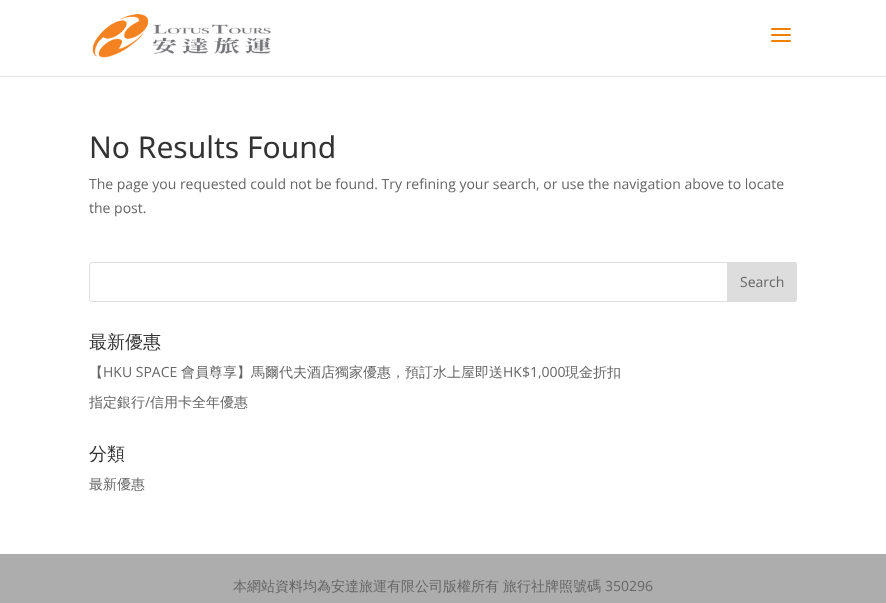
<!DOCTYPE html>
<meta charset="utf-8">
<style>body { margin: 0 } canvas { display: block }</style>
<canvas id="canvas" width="886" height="603"></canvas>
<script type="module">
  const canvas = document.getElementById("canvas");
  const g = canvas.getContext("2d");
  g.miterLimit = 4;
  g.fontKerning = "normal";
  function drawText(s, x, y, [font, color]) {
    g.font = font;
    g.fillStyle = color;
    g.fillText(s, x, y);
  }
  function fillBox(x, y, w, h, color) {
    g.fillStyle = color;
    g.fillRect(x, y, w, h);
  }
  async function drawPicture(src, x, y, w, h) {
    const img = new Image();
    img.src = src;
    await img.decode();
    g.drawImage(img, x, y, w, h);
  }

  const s1 = ["30px Noto Sans", "#333333"];
  const s2 = ["14px Open Sans", "#666666"];
  const s3 = ["500 18px WenQuanYi Zen Hei", "#333333"];
  const s4 = ["500 14px WenQuanYi Zen Hei", "#666666"];

  fillBox(0, 0, 886, 603, "#FFFFFF");
  fillBox(0, 76, 886, 1, "#E6E6E6");
  await drawPicture("pic1.png", 92, 14, 180, 44);
  await drawPicture("pic2.png", 771, 28, 20, 14);
  drawText("No Results Found", 89, 158, s1);
  drawText("The page you requested could not be found. Try refining your search, or use the navigation above to locate", 89, 189, s2);
  drawText("the post.", 89, 213, s2);
  g.beginPath();
  g.roundRect(89.5, 262.5, 707, 39, 2.5);
  g.strokeStyle = "#DDDDDD";
  g.stroke();
  g.fillStyle = "#DDDDDD";
  g.beginPath();
  g.roundRect(727.5, 262.5, 69, 39, [0, 2.5, 2.5, 0]);
  g.fill();
  g.stroke();
  drawText("Search", 740, 287, s2);
  drawText("最新優惠", 89, 348, s3);
  drawText("【", 89, 377, s4);
  drawText("HKU SPACE", 103, 377, s2);
  drawText("會員尊享】馬爾代夫酒店獨家優惠，預訂水上屋即送", 181, 377, s4);
  drawText("HK$1,000", 503, 377, s2);
  drawText("現金折扣", 565, 377, s4);
  drawText("指定銀行", 89, 407, s4);
  drawText("/", 145, 407, s2);
  drawText("信用卡全年優惠", 150, 407, s4);
  drawText("分類", 89, 460, s3);
  drawText("最新優惠", 89, 489, s4);
  fillBox(0, 554, 886, 49, "#ADADAD");
  drawText("本網站資料均為安達旅運有限公司版權所有", 233, 591, s4);
  drawText("旅行社牌照號碼", 503, 591, s4);
  drawText("350296", 605, 591, s2);
</script>
